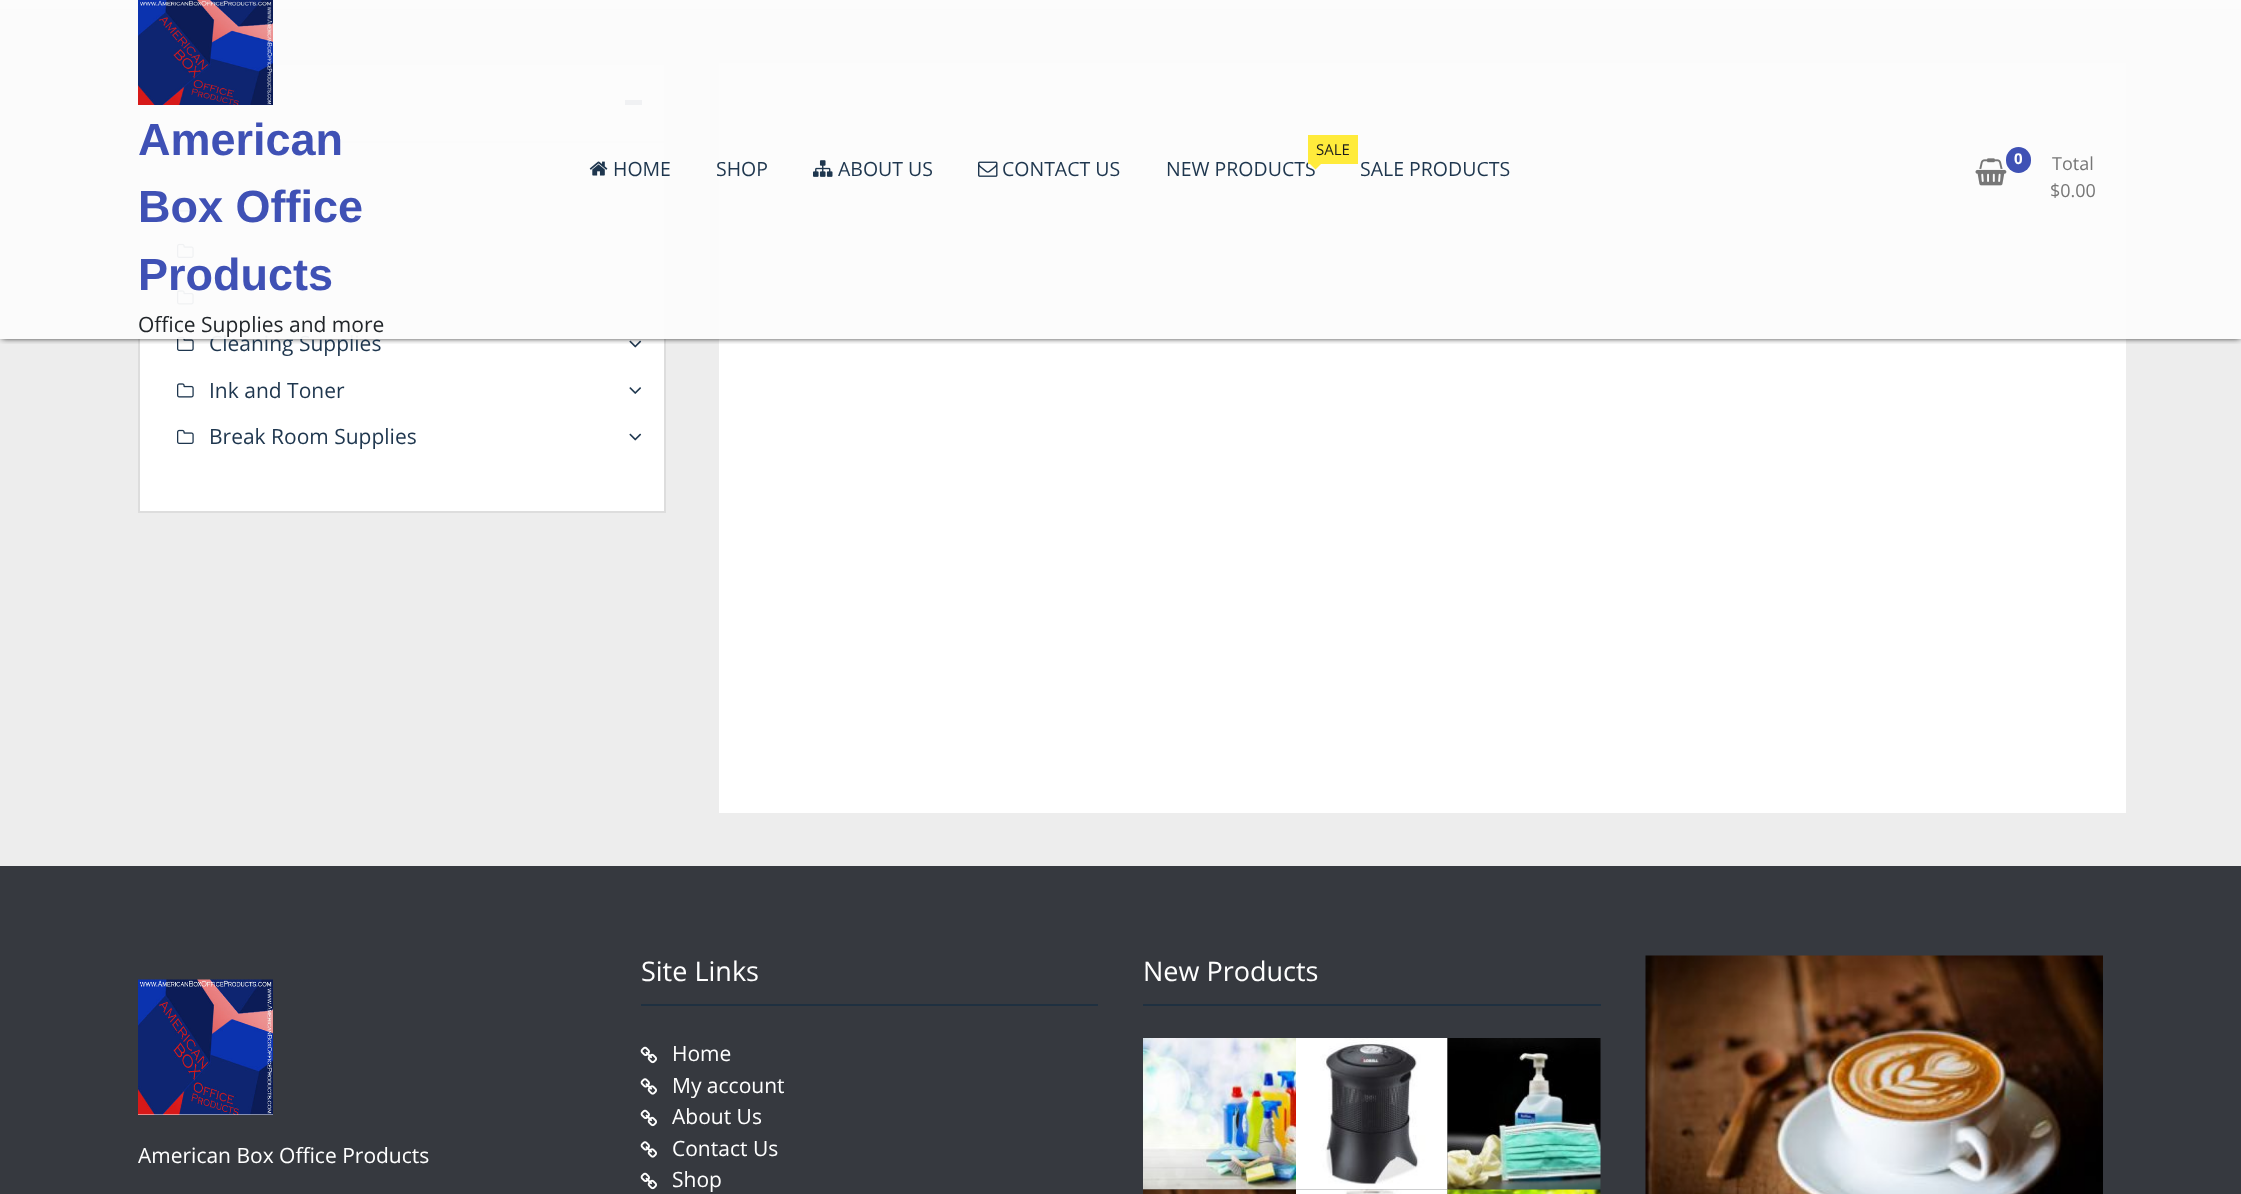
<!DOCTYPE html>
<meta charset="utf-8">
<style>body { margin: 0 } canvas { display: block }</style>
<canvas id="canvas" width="2241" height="1194"></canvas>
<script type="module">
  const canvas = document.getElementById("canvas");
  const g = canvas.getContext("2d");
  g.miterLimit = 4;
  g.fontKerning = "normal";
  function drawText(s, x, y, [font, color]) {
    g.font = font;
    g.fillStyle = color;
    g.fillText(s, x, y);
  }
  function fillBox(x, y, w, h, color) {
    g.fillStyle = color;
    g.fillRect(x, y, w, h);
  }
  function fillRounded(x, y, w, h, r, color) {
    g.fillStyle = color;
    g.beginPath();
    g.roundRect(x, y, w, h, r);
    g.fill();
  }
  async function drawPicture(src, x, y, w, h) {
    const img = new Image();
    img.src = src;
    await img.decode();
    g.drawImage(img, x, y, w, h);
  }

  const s1 = ["21px Open Sans", "#1E364E"];
  const s2 = ["bold 45px Liberation Sans", "#3F51B5"];
  const s3 = ["21px Open Sans", "#212529"];
  const s4 = ["19.5px Open Sans", "#1E364E"];
  const s5 = ["15px Open Sans", "#1C1C1C"];
  const s6 = ["bold 15px Open Sans", "#FFFFFF"];
  const s7 = ["18px Open Sans", "#767676"];
  const s8 = ["27px Open Sans", "#FFFFFF"];
  const s9 = ["21px Open Sans", "#FFFFFF"];

  fillBox(0, 0, 2241, 1194, "#EDEDED");
  fillBox(0, 0, 2241, 9, "#FFFFFF");
  fillBox(0, 9, 2241, 2, "#DDDDDD");
  g.fillStyle = "#FFFFFF";
  g.beginPath();
  g.rect(139, 64, 526, 448);
  g.fill();
  g.strokeStyle = "#DDDDDD";
  g.lineWidth = 2;
  g.stroke();
  fillBox(625, 100, 17, 5, "#1E364E");
  fillBox(140, 141, 525, 2, "#DDDDDD");
  await drawPicture("pic6.png", 177, 197, 17, 15);
  await drawPicture("pic7.png", 177, 243, 17, 15);
  await drawPicture("pic6.png", 177, 290, 17, 15);
  await drawPicture("pic7.png", 177, 336, 17, 15);
  await drawPicture("pic8.png", 629, 340, 13, 8);
  fillBox(719, 63, 1407, 750, "#FFFFFF");
  g.save();
  g.beginPath();
  g.rect(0, 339, 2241, 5);
  g.clip();
  g.fillStyle = "#000000";
  g.filter = "blur(3px)";
  g.beginPath();
  g.rect(2, 2, 2238, 336);
  g.fill();
  g.filter = "none";
  g.restore();
  drawText("Cleaning Supplies", 209, 351, s1);
  fillBox(0, 0, 2241, 339, "rgba(252, 252, 252, 0.95)");
  await drawPicture("pic1.png", 138, 0, 135, 105);
  drawText("American", 138, 155, s2);
  drawText("Box Office", 138, 222, s2);
  drawText("Products", 138, 290, s2);
  drawText("Office Supplies and more", 138, 332, s3);
  await drawPicture("pic2.png", 589, 161, 19, 15);
  drawText("HOME", 613, 176, s4);
  drawText("SHOP", 716, 176, s4);
  await drawPicture("pic3.png", 813, 160, 20, 17);
  drawText("ABOUT US", 838, 176, s4);
  await drawPicture("pic4.png", 978, 161, 20, 16);
  drawText("CONTACT US", 1002, 176, s4);
  drawText("NEW PRODUCTS", 1166, 176, s4);
  fillBox(1308, 135, 50, 29, "#FFEB3B");
  drawText("SALE", 1316, 155, s5);
  g.fillStyle = "#FFEB3B";
  g.beginPath();
  g.moveTo(1308, 162);
  g.lineTo(1323, 162);
  g.lineTo(1315.5, 169.5);
  g.closePath();
  g.fill();
  drawText("SALE PRODUCTS", 1360, 176, s4);
  await drawPicture("pic5.png", 1975, 158, 32, 28);
  fillRounded(2006, 147, 25, 26, 12.5, "#3F51B5");
  drawText("0", 2014, 164, s6);
  drawText("Total", 2052, 170, s7);
  drawText("$0.00", 2050, 197, s7);
  await drawPicture("pic6.png", 177, 383, 17, 15);
  drawText("Ink and Toner", 209, 398, s1);
  await drawPicture("pic9.png", 629, 387, 12, 7);
  await drawPicture("pic7.png", 177, 429, 17, 15);
  drawText("Break Room Supplies", 209, 444, s1);
  await drawPicture("pic8.png", 629, 433, 13, 8);
  fillBox(0, 866, 2241, 328, "#36393F");
  drawText("Site Links", 641, 981, s8);
  fillBox(641, 1004, 457, 2, "#1F3040");
  await drawPicture("pic10.png", 640, 1046, 17, 18);
  drawText("Home", 672, 1061, s9);
  await drawPicture("pic11.png", 640, 1078, 17, 17);
  drawText("My account", 672, 1093, s9);
  await drawPicture("pic10.png", 640, 1109, 17, 18);
  drawText("About Us", 672, 1124, s9);
  await drawPicture("pic11.png", 640, 1141, 17, 17);
  drawText("Contact Us", 672, 1156, s9);
  await drawPicture("pic10.png", 640, 1172, 17, 18);
  drawText("Shop", 672, 1187, s9);
  drawText("New Products", 1143, 981, s8);
  fillBox(1143, 1004, 458, 2, "#1F3040");
  await drawPicture("pic12.png", 1143, 1038, 153, 152);
  await drawPicture("pic13.png", 1296, 1038, 152, 152);
  await drawPicture("pic14.png", 1447, 1038, 154, 152);
  await drawPicture("pic15.png", 1143, 1189, 153, 5);
  await drawPicture("pic16.png", 1296, 1189, 152, 5);
  await drawPicture("pic17.png", 1447, 1189, 154, 5);
  await drawPicture("pic18.png", 1645, 955, 458, 239);
  fillBox(138, 1114, 135, 1, "#FFFFFF");
  await drawPicture("pic19.png", 138, 979, 135, 136);
  drawText("American Box Office Products", 138, 1163, s9);
</script>
